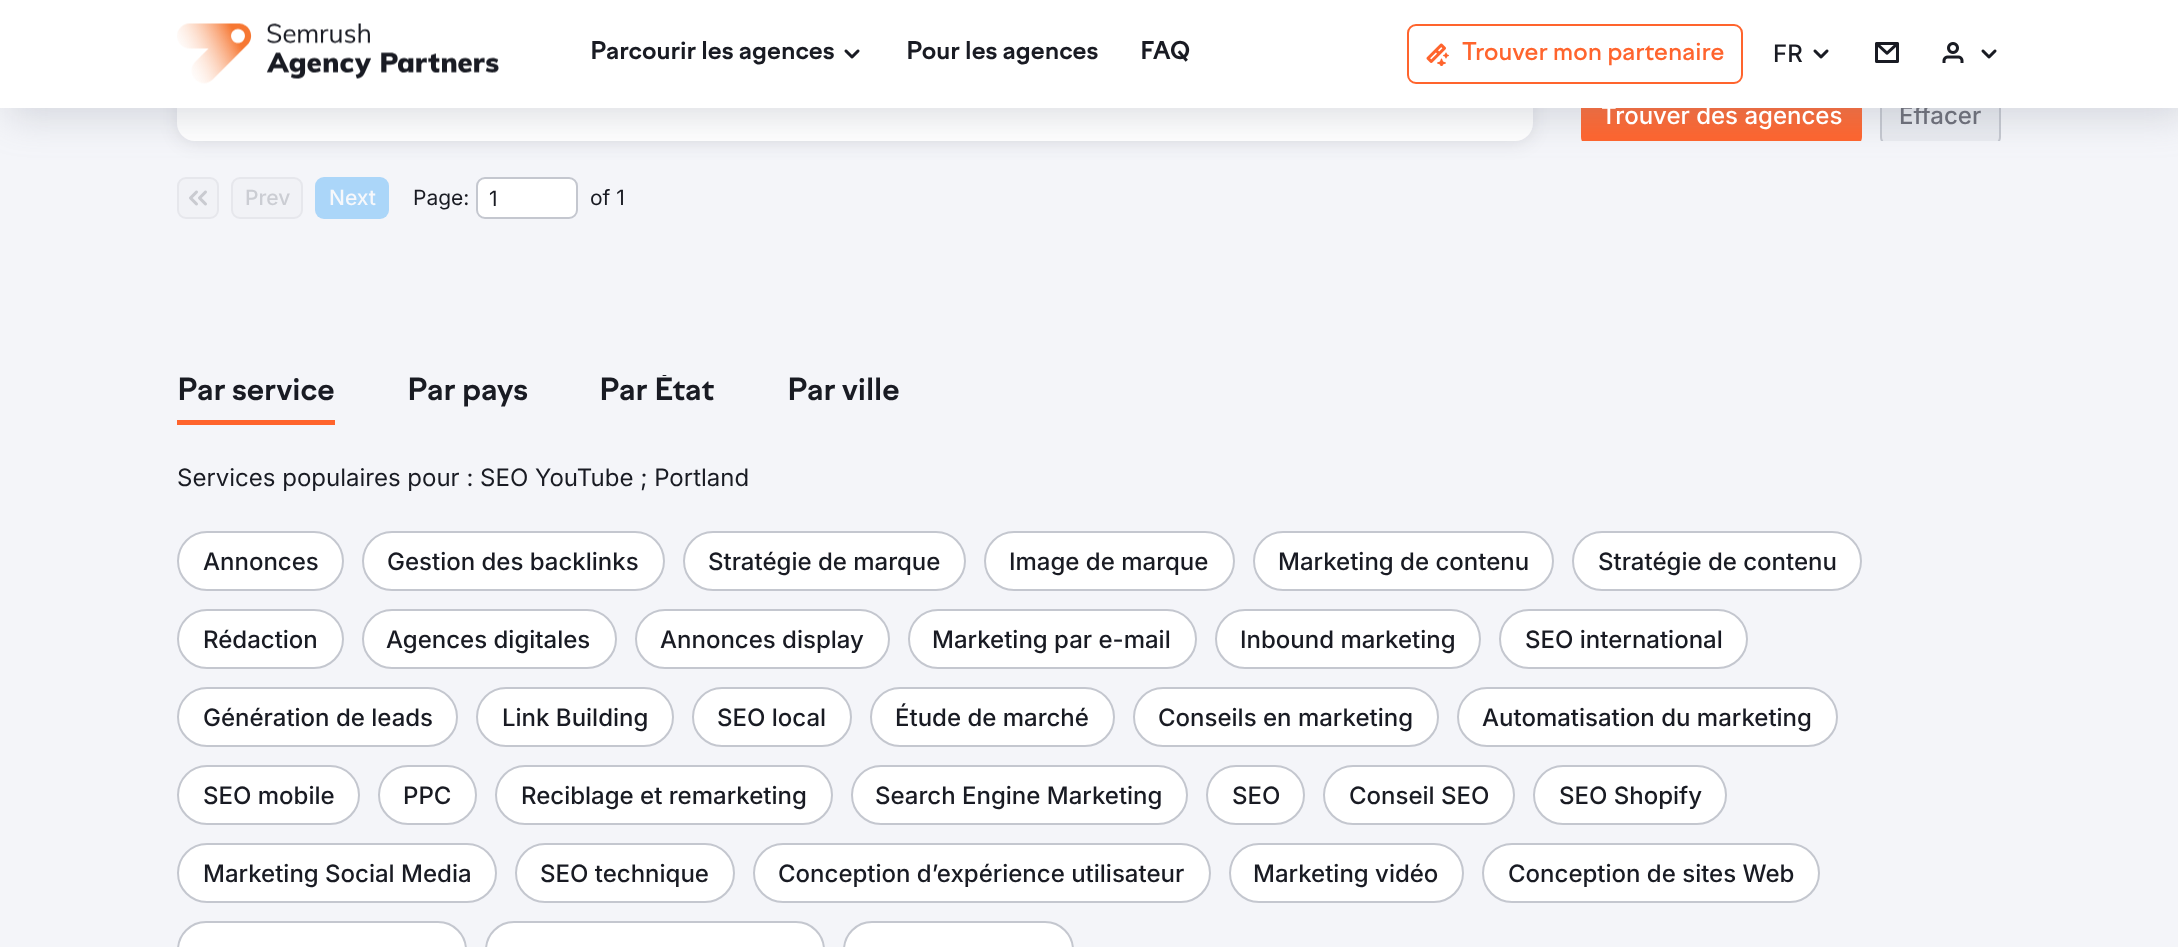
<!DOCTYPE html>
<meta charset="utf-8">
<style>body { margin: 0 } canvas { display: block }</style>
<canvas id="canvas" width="2178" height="947"></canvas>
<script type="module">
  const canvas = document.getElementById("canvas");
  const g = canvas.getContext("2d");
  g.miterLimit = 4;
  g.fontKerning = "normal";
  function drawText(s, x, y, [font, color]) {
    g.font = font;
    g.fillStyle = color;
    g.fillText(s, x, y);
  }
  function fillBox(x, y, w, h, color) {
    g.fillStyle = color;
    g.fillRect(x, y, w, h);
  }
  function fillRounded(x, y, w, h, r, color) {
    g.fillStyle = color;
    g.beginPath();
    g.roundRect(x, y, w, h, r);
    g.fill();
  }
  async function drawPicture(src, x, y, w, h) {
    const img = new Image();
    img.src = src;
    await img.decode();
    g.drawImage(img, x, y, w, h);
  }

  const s1 = ["500 24px Inter", "#6C6E79"];
  const s2 = ["bold 24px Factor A", "#191B23"];
  const s3 = ["500 24px Factor A", "#FF642D"];
  const s4 = ["500 24px Inter", "#191B23"];
  const s5 = ["500 24px Inter", "#FFFFFF"];
  const s6 = ["500 21px Inter", "#CBCDD3"];
  const s7 = ["500 21px Inter", "#F7F8FB"];
  const s8 = ["21px Inter", "#191B23"];
  const s9 = ["bold 30px Factor A", "#191B23"];
  const s10 = ["24px Inter", "#191B23"];

  fillBox(0, 0, 2178, 947, "#F4F5F9");
  g.fillStyle = "rgba(25, 27, 35, 0.1)";
  g.filter = "blur(9px)";
  g.beginPath();
  g.roundRect(177, -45, 1356, 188, 18);
  g.fill();
  g.filter = "none";
  fillRounded(177, -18, 1356, 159, 18, "#FFFFFF");
  g.save();
  g.beginPath();
  g.rect(1557, 0, 468, 141);
  g.clip();
  fillRounded(1581, 86, 281, 60, 9, "#FF642D");
  g.fillStyle = "#E9EBF0";
  g.beginPath();
  g.roundRect(1881, 87, 119, 58, 8);
  g.fill();
  g.strokeStyle = "#C4C7CF";
  g.lineWidth = 2;
  g.stroke();
  g.restore();
  g.fillStyle = "rgba(137, 141, 154, 0.3)";
  g.filter = "blur(19px)";
  g.beginPath();
  g.rect(8, 8, 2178, 108);
  g.fill();
  g.filter = "none";
  drawText("Effacer", 1899, 124, s1);
  fillBox(0, 0, 2178, 108, "#FFFFFF");
  await drawPicture("pic1.png", 177, 23, 322, 61);
  drawText("Parcourir les agences", 590, 59, s2);
  await drawPicture("pic2.png", 844, 49, 16, 10);
  drawText("Pour les agences", 906, 59, s2);
  drawText("FAQ", 1140, 59, s2);
  g.beginPath();
  g.roundRect(1408, 25, 334, 58, 8);
  g.strokeStyle = "#FF642D";
  g.lineWidth = 2;
  g.stroke();
  await drawPicture("pic3.png", 1426, 43, 23, 23);
  drawText("Trouver mon partenaire", 1462, 60, s3);
  drawText("FR", 1773, 62, s4);
  await drawPicture("pic2.png", 1813, 49, 16, 10);
  await drawPicture("pic4.png", 1875, 42, 24, 21);
  await drawPicture("pic5.png", 1942, 42, 22, 21);
  await drawPicture("pic2.png", 1981, 49, 16, 10);
  drawText("Trouver des agences", 1601, 124, s5);
  g.fillStyle = "#F1F2F6";
  g.beginPath();
  g.roundRect(178, 178, 40, 40, 8);
  g.fill();
  g.strokeStyle = "#E6E7EC";
  g.stroke();
  await drawPicture("pic6.png", 189, 190, 18, 16);
  g.beginPath();
  g.roundRect(232, 178, 70, 40, 8);
  g.fill();
  g.stroke();
  drawText("Prev", 245, 205, s6);
  fillRounded(315, 177, 74, 42, 9, "#ABD6F9");
  drawText("Next", 329, 205, s7);
  drawText("Page:", 413, 205, s8);
  g.fillStyle = "#FFFFFF";
  g.beginPath();
  g.roundRect(477, 178, 100, 40, 8);
  g.fill();
  g.strokeStyle = "#C4C7CF";
  g.stroke();
  drawText("1", 489, 206, s8);
  drawText("of 1", 590, 205, s8);
  drawText("Par service", 177, 400, s9);
  fillBox(177, 420, 158, 5, "#FF642D");
  drawText("Par pays", 407, 400, s9);
  g.save();
  g.beginPath();
  g.rect(600, 375, 114, 36);
  g.clip();
  drawText("Par État", 599, 400, s9);
  g.restore();
  drawText("Par ville", 787, 400, s9);
  drawText("Services populaires pour : SEO YouTube ; Portland", 177, 486, s10);
  g.fillStyle = "#FFFFFF";
  g.beginPath();
  g.roundRect(178, 532, 165, 58, 29);
  g.fill();
  g.stroke();
  drawText("Annonces", 203, 570, s4);
  g.fillStyle = "#FFFFFF";
  g.beginPath();
  g.roundRect(363, 532, 301, 58, 29);
  g.fill();
  g.stroke();
  drawText("Gestion des backlinks", 387, 570, s4);
  g.fillStyle = "#FFFFFF";
  g.beginPath();
  g.roundRect(684, 532, 281, 58, 29);
  g.fill();
  g.stroke();
  drawText("Stratégie de marque", 708, 570, s4);
  g.fillStyle = "#FFFFFF";
  g.beginPath();
  g.roundRect(985, 532, 249, 58, 29);
  g.fill();
  g.stroke();
  drawText("Image de marque", 1009, 570, s4);
  g.fillStyle = "#FFFFFF";
  g.beginPath();
  g.roundRect(1254, 532, 299, 58, 29);
  g.fill();
  g.stroke();
  drawText("Marketing de contenu", 1278, 570, s4);
  g.fillStyle = "#FFFFFF";
  g.beginPath();
  g.roundRect(1573, 532, 288, 58, 29);
  g.fill();
  g.stroke();
  drawText("Stratégie de contenu", 1598, 570, s4);
  g.fillStyle = "#FFFFFF";
  g.beginPath();
  g.roundRect(178, 610, 165, 58, 29);
  g.fill();
  g.stroke();
  drawText("Rédaction", 203, 648, s4);
  g.fillStyle = "#FFFFFF";
  g.beginPath();
  g.roundRect(363, 610, 253, 58, 29);
  g.fill();
  g.stroke();
  drawText("Agences digitales", 386, 648, s4);
  g.fillStyle = "#FFFFFF";
  g.beginPath();
  g.roundRect(636, 610, 253, 58, 29);
  g.fill();
  g.stroke();
  drawText("Annonces display", 660, 648, s4);
  g.fillStyle = "#FFFFFF";
  g.beginPath();
  g.roundRect(909, 610, 287, 58, 29);
  g.fill();
  g.stroke();
  drawText("Marketing par e-mail", 932, 648, s4);
  g.fillStyle = "#FFFFFF";
  g.beginPath();
  g.roundRect(1216, 610, 264, 58, 29);
  g.fill();
  g.stroke();
  drawText("Inbound marketing", 1240, 648, s4);
  g.fillStyle = "#FFFFFF";
  g.beginPath();
  g.roundRect(1500, 610, 247, 58, 29);
  g.fill();
  g.stroke();
  drawText("SEO international", 1525, 648, s4);
  g.fillStyle = "#FFFFFF";
  g.beginPath();
  g.roundRect(178, 688, 279, 58, 29);
  g.fill();
  g.stroke();
  drawText("Génération de leads", 203, 726, s4);
  g.fillStyle = "#FFFFFF";
  g.beginPath();
  g.roundRect(477, 688, 196, 58, 29);
  g.fill();
  g.stroke();
  drawText("Link Building", 502, 726, s4);
  g.fillStyle = "#FFFFFF";
  g.beginPath();
  g.roundRect(693, 688, 158, 58, 29);
  g.fill();
  g.stroke();
  drawText("SEO local", 717, 726, s4);
  g.fillStyle = "#FFFFFF";
  g.beginPath();
  g.roundRect(871, 688, 243, 58, 29);
  g.fill();
  g.stroke();
  drawText("Étude de marché", 895, 726, s4);
  g.fillStyle = "#FFFFFF";
  g.beginPath();
  g.roundRect(1134, 688, 304, 58, 29);
  g.fill();
  g.stroke();
  drawText("Conseils en marketing", 1158, 726, s4);
  g.fillStyle = "#FFFFFF";
  g.beginPath();
  g.roundRect(1458, 688, 379, 58, 29);
  g.fill();
  g.stroke();
  drawText("Automatisation du marketing", 1482, 726, s4);
  g.fillStyle = "#FFFFFF";
  g.beginPath();
  g.roundRect(178, 766, 181, 58, 29);
  g.fill();
  g.stroke();
  drawText("SEO mobile", 203, 804, s4);
  g.fillStyle = "#FFFFFF";
  g.beginPath();
  g.roundRect(379, 766, 97, 58, 29);
  g.fill();
  g.stroke();
  drawText("PPC", 403, 804, s4);
  g.fillStyle = "#FFFFFF";
  g.beginPath();
  g.roundRect(496, 766, 336, 58, 29);
  g.fill();
  g.stroke();
  drawText("Reciblage et remarketing", 521, 804, s4);
  g.fillStyle = "#FFFFFF";
  g.beginPath();
  g.roundRect(852, 766, 335, 58, 29);
  g.fill();
  g.stroke();
  drawText("Search Engine Marketing", 875, 804, s4);
  g.fillStyle = "#FFFFFF";
  g.beginPath();
  g.roundRect(1207, 766, 97, 58, 29);
  g.fill();
  g.stroke();
  drawText("SEO", 1232, 804, s4);
  g.fillStyle = "#FFFFFF";
  g.beginPath();
  g.roundRect(1324, 766, 190, 58, 29);
  g.fill();
  g.stroke();
  drawText("Conseil SEO", 1349, 804, s4);
  g.fillStyle = "#FFFFFF";
  g.beginPath();
  g.roundRect(1534, 766, 192, 58, 29);
  g.fill();
  g.stroke();
  drawText("SEO Shopify", 1559, 804, s4);
  g.fillStyle = "#FFFFFF";
  g.beginPath();
  g.roundRect(178, 844, 318, 58, 29);
  g.fill();
  g.stroke();
  drawText("Marketing Social Media", 203, 882, s4);
  g.fillStyle = "#FFFFFF";
  g.beginPath();
  g.roundRect(516, 844, 218, 58, 29);
  g.fill();
  g.stroke();
  drawText("SEO technique", 540, 882, s4);
  g.fillStyle = "#FFFFFF";
  g.beginPath();
  g.roundRect(754, 844, 456, 58, 29);
  g.fill();
  g.stroke();
  drawText("Conception d’expérience utilisateur", 778, 882, s4);
  g.fillStyle = "#FFFFFF";
  g.beginPath();
  g.roundRect(1230, 844, 233, 58, 29);
  g.fill();
  g.stroke();
  drawText("Marketing vidéo", 1253, 882, s4);
  g.fillStyle = "#FFFFFF";
  g.beginPath();
  g.roundRect(1483, 844, 336, 58, 29);
  g.fill();
  g.stroke();
  drawText("Conception de sites Web", 1508, 882, s4);
  g.fillStyle = "#FFFFFF";
  g.beginPath();
  g.roundRect(178, 922, 288, 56, 29);
  g.fill();
  g.stroke();
  g.beginPath();
  g.roundRect(486, 922, 338, 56, 29);
  g.fill();
  g.stroke();
  g.beginPath();
  g.roundRect(844, 922, 229, 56, 29);
  g.fill();
  g.stroke();
</script>
